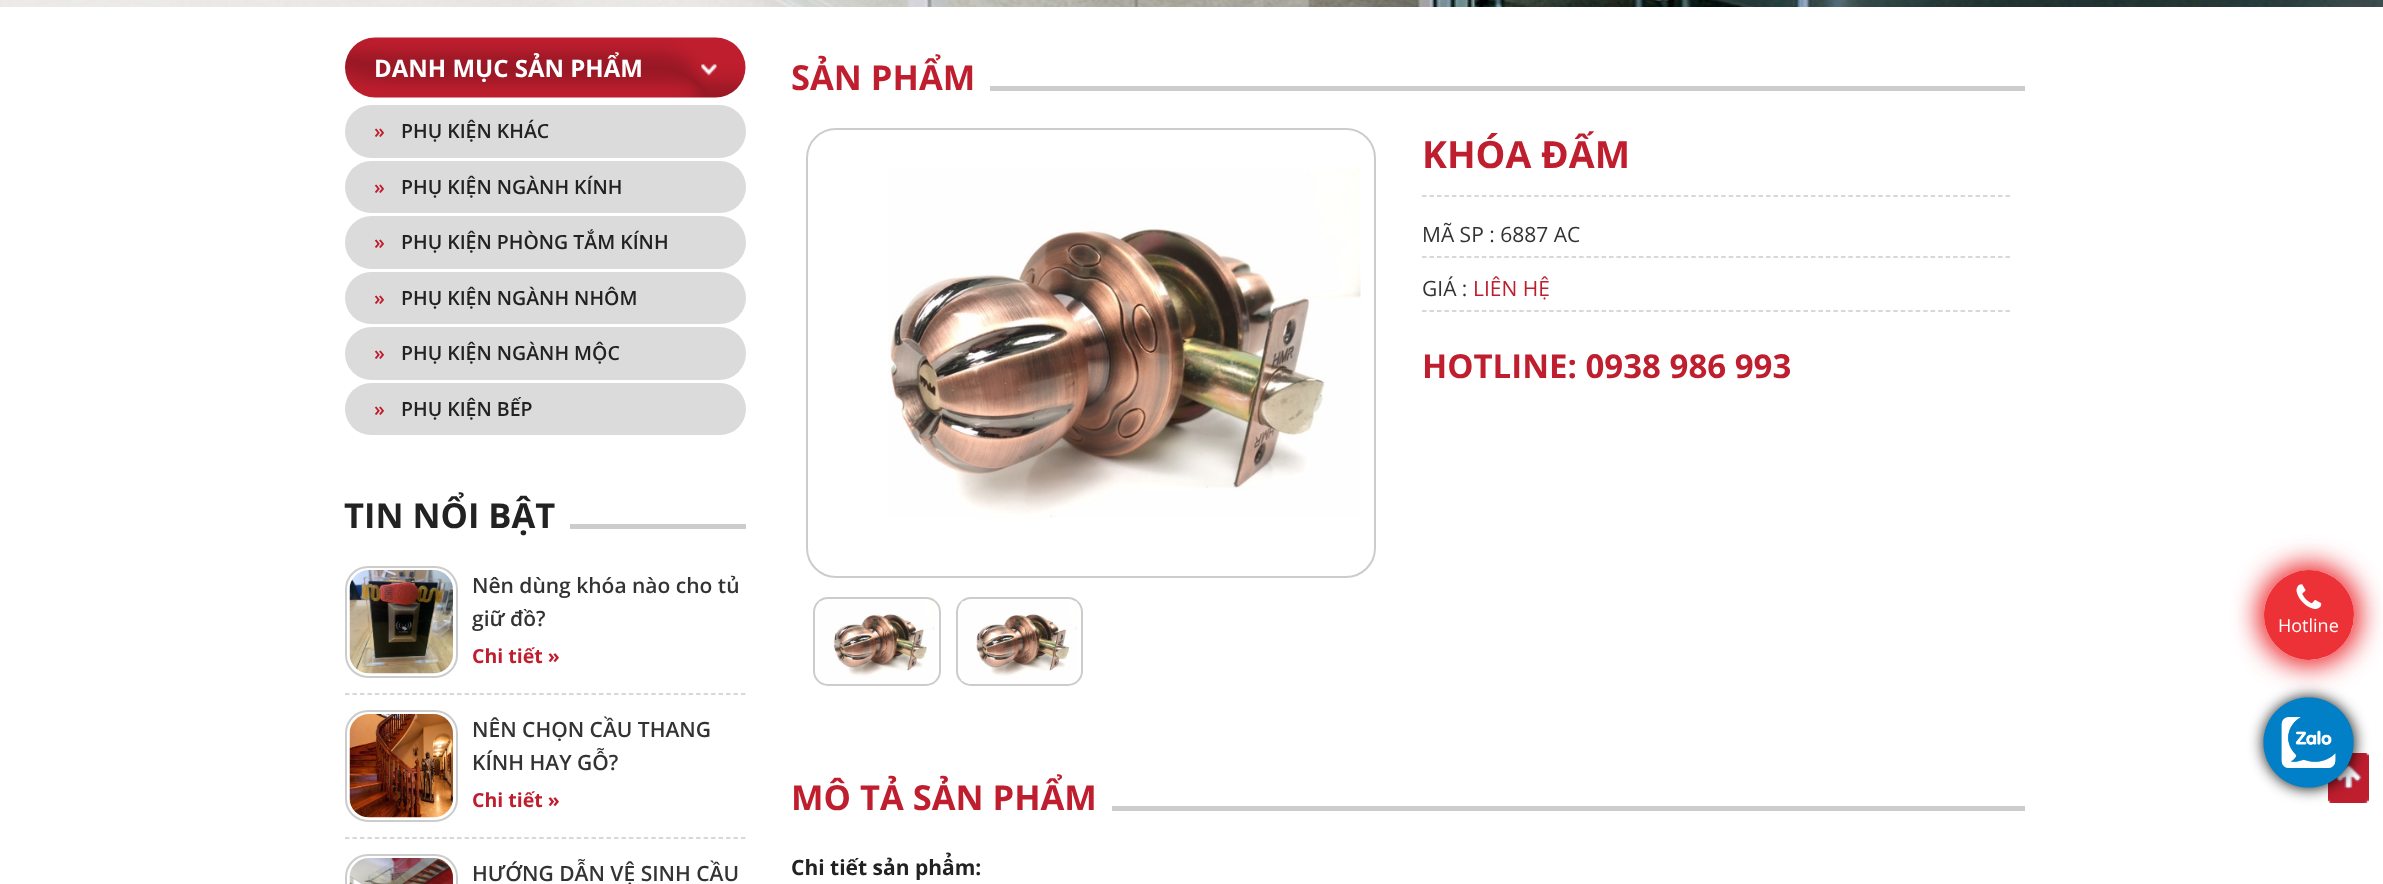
<!DOCTYPE html>
<meta charset="utf-8">
<style>body { margin: 0 } canvas { display: block }</style>
<canvas id="canvas" width="2383" height="884"></canvas>
<script type="module">
  const canvas = document.getElementById("canvas");
  const g = canvas.getContext("2d");
  g.miterLimit = 4;
  g.fontKerning = "normal";
  function drawText(s, x, y, [font, color]) {
    g.font = font;
    g.fillStyle = color;
    g.fillText(s, x, y);
  }
  function fillBox(x, y, w, h, color) {
    g.fillStyle = color;
    g.fillRect(x, y, w, h);
  }
  function fillRounded(x, y, w, h, r, color) {
    g.fillStyle = color;
    g.beginPath();
    g.roundRect(x, y, w, h, r);
    g.fill();
  }
  async function drawPicture(src, x, y, w, h) {
    const img = new Image();
    img.src = src;
    await img.decode();
    g.drawImage(img, x, y, w, h);
  }

  const s1 = ["bold 24px Open Sans", "#FFFFFF"];
  const s2 = ["600 19.5px Open Sans", "#BF1E2E"];
  const s3 = ["600 19.5px Open Sans", "#222222"];
  const s4 = ["bold 34.5px Open Sans", "#222222"];
  const s5 = ["600 21px Open Sans", "#333333"];
  const s6 = ["bold 19.5px Open Sans", "#BF1E2E"];
  const s7 = ["bold 34.5px Open Sans", "#BF1E2E"];
  const s8 = ["bold 37.5px Open Sans", "#BF1E2E"];
  const s9 = ["21px Open Sans", "#333333"];
  const s10 = ["21px Open Sans", "#BF1E2E"];
  const s11 = ["bold 33px Open Sans", "#BF1E2E"];
  const s12 = ["bold 21px Open Sans", "#222222"];
  const s13 = ["18px Open Sans", "#FFFFFF"];

  fillBox(0, 0, 2383, 884, "#FFFFFF");
  await drawPicture("pic1.png", 0, 0, 2383, 7);
  await drawPicture("pic2.png", 344, 37, 402, 61);
  drawText("DANH MỤC SẢN PHẨM", 374, 77, s1);
  fillRounded(345, 105, 401, 53, 26.5, "#DBDBDB");
  drawText("»", 374, 138, s2);
  drawText("PHỤ KIỆN KHÁC", 401, 138, s3);
  fillRounded(345, 161, 401, 52, 26, "#DBDBDB");
  drawText("»", 374, 194, s2);
  drawText("PHỤ KIỆN NGÀNH KÍNH", 401, 194, s3);
  fillRounded(345, 216, 401, 53, 26.5, "#DBDBDB");
  drawText("»", 374, 249, s2);
  drawText("PHỤ KIỆN PHÒNG TẮM KÍNH", 401, 249, s3);
  fillRounded(345, 272, 401, 52, 26, "#DBDBDB");
  drawText("»", 374, 305, s2);
  drawText("PHỤ KIỆN NGÀNH NHÔM", 401, 305, s3);
  fillRounded(345, 327, 401, 53, 26.5, "#DBDBDB");
  drawText("»", 374, 360, s2);
  drawText("PHỤ KIỆN NGÀNH MỘC", 401, 360, s3);
  fillRounded(345, 383, 401, 52, 26, "#DBDBDB");
  drawText("»", 374, 416, s2);
  drawText("PHỤ KIỆN BẾP", 401, 416, s3);
  fillBox(570, 524, 176, 5, "#CCCCCC");
  drawText("TIN NỔI BẬT", 344, 528, s4);
  g.beginPath();
  g.moveTo(345, 694);
  g.lineTo(745.5, 694);
  g.strokeStyle = "#CCCCCC";
  g.lineWidth = 1.5;
  g.setLineDash([4.5, 2.97]);
  g.stroke();
  g.beginPath();
  g.roundRect(346, 567, 111, 110, 22);
  g.lineWidth = 2;
  g.setLineDash([]);
  g.stroke();
  await drawPicture("pic3.png", 349, 570, 104, 104);
  drawText("Nên dùng khóa nào cho tủ", 472, 593, s5);
  drawText("giữ đồ?", 472, 626, s5);
  drawText("Chi tiết »", 472, 663, s6);
  g.beginPath();
  g.moveTo(345, 838);
  g.lineTo(745.5, 838);
  g.lineWidth = 1.5;
  g.setLineDash([4.5, 2.97]);
  g.stroke();
  g.beginPath();
  g.roundRect(346, 711, 111, 110, 22);
  g.lineWidth = 2;
  g.setLineDash([]);
  g.stroke();
  await drawPicture("pic4.png", 349, 714, 104, 104);
  drawText("NÊN CHỌN CẦU THANG", 472, 737, s5);
  drawText("KÍNH HAY GỖ?", 472, 770, s5);
  drawText("Chi tiết »", 472, 807, s6);
  g.beginPath();
  g.roundRect(346, 855, 111, 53, 22);
  g.stroke();
  await drawPicture("pic5.png", 349, 858, 104, 26);
  drawText("HƯỚNG DẪN VỆ SINH CẦU", 472, 881, s5);
  fillBox(990, 86, 1035, 5, "#CCCCCC");
  drawText("SẢN PHẨM", 791, 90, s7);
  g.beginPath();
  g.roundRect(807, 129, 568, 448, 29);
  g.stroke();
  await drawPicture("pic6.png", 888, 168, 473, 350);
  g.beginPath();
  g.roundRect(814, 598, 126, 87, 14);
  g.stroke();
  await drawPicture("pic7.png", 819, 601, 116, 80);
  g.beginPath();
  g.roundRect(957, 598, 125, 87, 14);
  g.stroke();
  await drawPicture("pic8.png", 961, 601, 116, 80);
  g.beginPath();
  g.moveTo(1422, 196);
  g.lineTo(2010, 196);
  g.lineWidth = 1.5;
  g.setLineDash([4.5, 2.98]);
  g.stroke();
  drawText("KHÓA ĐẤM", 1422, 168, s8);
  g.beginPath();
  g.moveTo(1422, 257);
  g.lineTo(2010, 257);
  g.stroke();
  drawText("MÃ SP : 6887 AC", 1422, 242, s9);
  g.beginPath();
  g.moveTo(1422, 311);
  g.lineTo(2010, 311);
  g.stroke();
  drawText("GIÁ :", 1422, 296, s9);
  drawText("LIÊN HỆ", 1473, 296, s10);
  drawText("HOTLINE: 0938 986 993", 1422, 378, s11);
  fillBox(1112, 806, 913, 5, "#CCCCCC");
  drawText("MÔ TẢ SẢN PHẨM", 791, 810, s7);
  drawText("Chi tiết sản phẩm:", 791, 875, s12);
  g.fillStyle = "#ED3237";
  g.beginPath();
  g.arc(2309, 615, 45, 0, Math.PI * 2);
  g.fill();
  await drawPicture("pic11.png", 2328, 753, 41, 50);
  g.fillStyle = "#000000";
  g.filter = "blur(7.5px)";
  g.beginPath();
  g.roundRect(2264, 698, 90, 90, 45);
  g.fill();
  g.filter = "none";
  await drawPicture("pic10.png", 2263, 697, 91, 91);
  g.save();
  g.beginPath();
  g.moveTo(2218, 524);
  g.lineTo(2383, 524);
  g.lineTo(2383, 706);
  g.lineTo(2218, 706);
  g.closePath();
  g.moveTo(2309, 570);
  g.bezierCurveTo(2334, 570, 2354, 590, 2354, 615);
  g.bezierCurveTo(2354, 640, 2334, 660, 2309, 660);
  g.bezierCurveTo(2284, 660, 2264, 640, 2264, 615);
  g.bezierCurveTo(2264, 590, 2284, 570, 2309, 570);
  g.closePath();
  g.clip("evenodd");
  g.fillStyle = "#ED3237";
  g.filter = "blur(15px)";
  g.beginPath();
  g.roundRect(2264, 570, 90, 90, 45);
  g.fill();
  g.filter = "none";
  g.restore();
  await drawPicture("pic9.png", 2296, 584, 26, 25);
  g.save();
  g.beginPath();
  g.moveTo(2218, 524);
  g.lineTo(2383, 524);
  g.lineTo(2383, 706);
  g.lineTo(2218, 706);
  g.closePath();
  g.moveTo(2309, 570);
  g.bezierCurveTo(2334, 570, 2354, 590, 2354, 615);
  g.bezierCurveTo(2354, 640, 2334, 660, 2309, 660);
  g.bezierCurveTo(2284, 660, 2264, 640, 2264, 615);
  g.bezierCurveTo(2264, 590, 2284, 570, 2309, 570);
  g.closePath();
  g.clip("evenodd");
  g.fillStyle = "#ED3237";
  g.filter = "blur(15px)";
  g.beginPath();
  g.roundRect(2264, 570, 90, 90, 45);
  g.fill();
  g.filter = "none";
  g.restore();
  drawText("Hotline", 2278, 632, s13);
</script>
